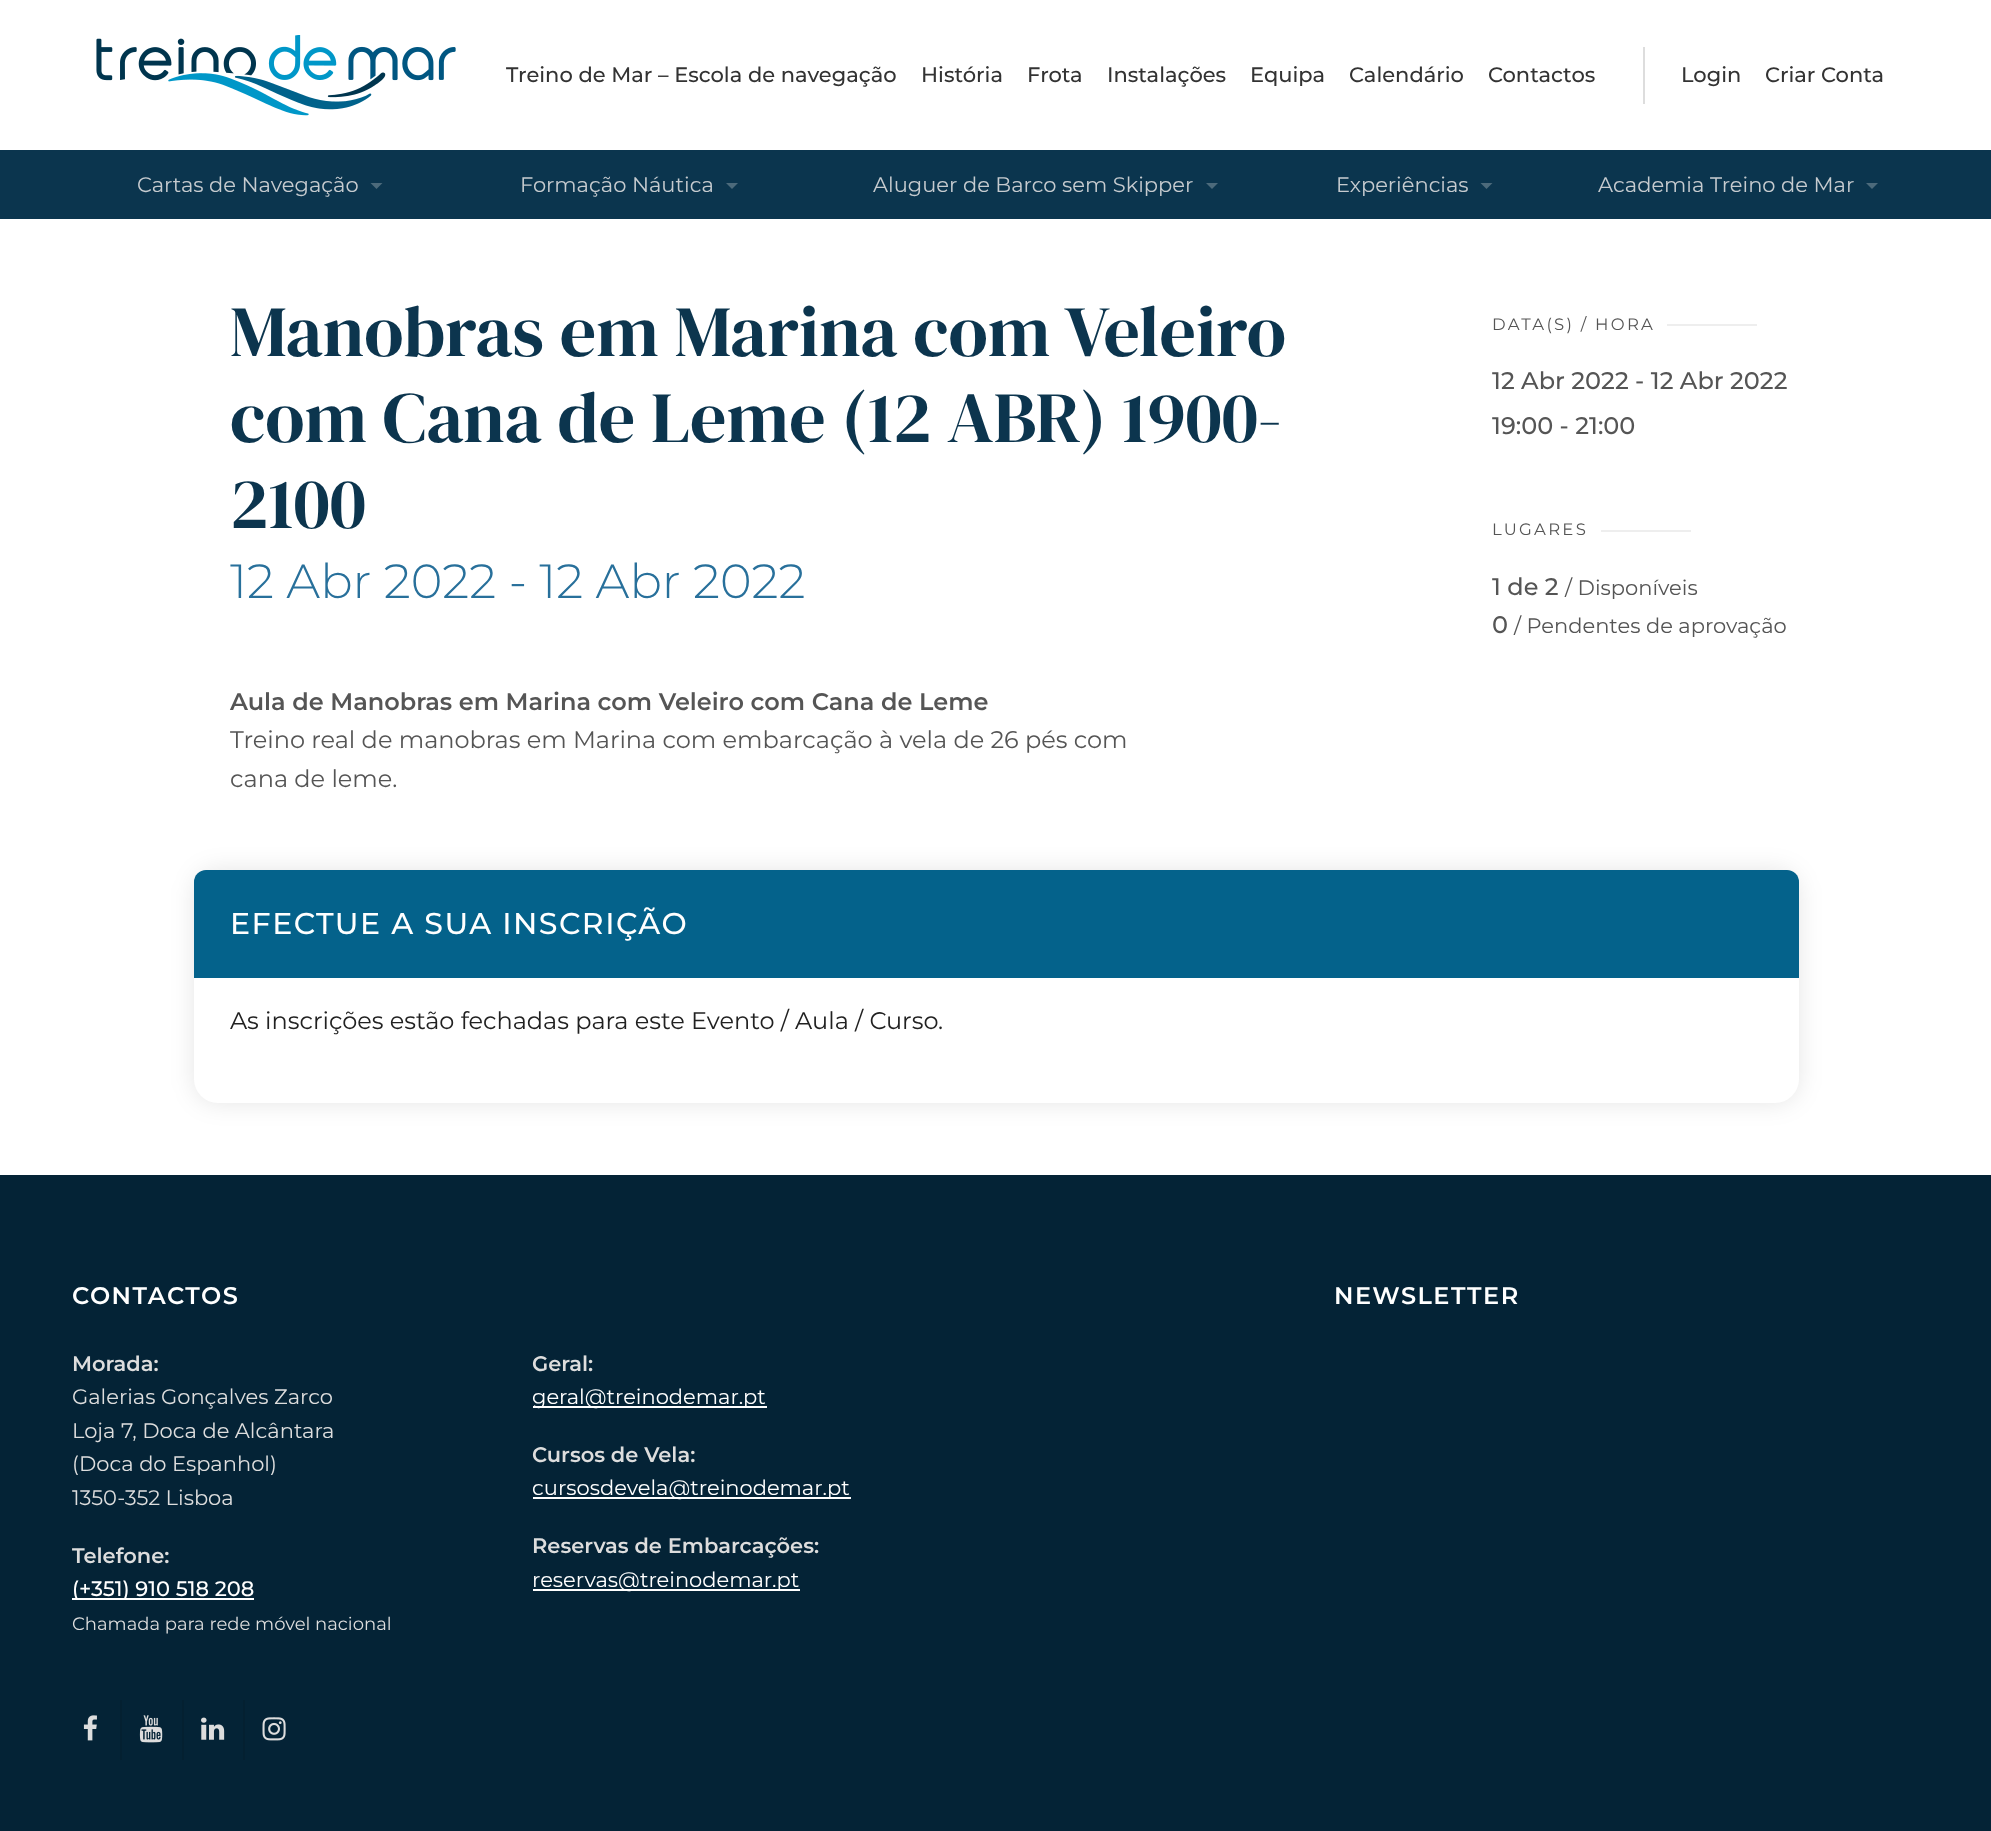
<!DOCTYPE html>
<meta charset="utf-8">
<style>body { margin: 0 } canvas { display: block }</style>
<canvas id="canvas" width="1991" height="1831"></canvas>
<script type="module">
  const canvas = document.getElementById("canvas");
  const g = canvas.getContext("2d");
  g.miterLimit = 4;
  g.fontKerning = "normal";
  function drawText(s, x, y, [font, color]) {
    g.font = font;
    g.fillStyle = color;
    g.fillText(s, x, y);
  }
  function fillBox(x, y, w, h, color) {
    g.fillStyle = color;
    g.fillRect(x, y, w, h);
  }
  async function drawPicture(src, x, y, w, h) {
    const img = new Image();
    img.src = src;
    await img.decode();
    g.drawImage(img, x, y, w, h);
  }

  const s1 = ["500 21px Montserrat", "#333333"];
  const s2 = ["21px Montserrat", "#C6CBCF"];
  const s3 = ["72px DM Serif Display", "#0C354E"];
  const s4 = ["300 48px Montserrat", "#28709B"];
  const s5 = ["600 24px Montserrat", "#555555"];
  const s6 = ["24px Montserrat", "#555555"];
  const s7 = ["16.5px Montserrat", "#555555"];
  const s8 = ["500 24px Montserrat", "#555555"];
  const s9 = ["21px Montserrat", "#555555"];
  const s10 = ["500 30px Montserrat", "#FFFFFF"];
  const s11 = ["24px Montserrat", "#212121"];
  const s12 = ["600 24px Montserrat", "#FFFFFF"];
  const s13 = ["600 21px Montserrat", "#DDDDDD"];
  const s14 = ["21px Montserrat", "#DDDDDD"];
  const s15 = ["500 21px Montserrat", "#FFFFFF"];
  const s16 = ["18px Montserrat", "#DDDDDD"];
  const s17 = ["21px Montserrat", "#FFFFFF"];

  fillBox(0, 0, 1991, 1831, "#FFFFFF");
  await drawPicture("pic1.png", 96, 35, 360, 81);
  drawText("Treino de Mar – Escola de navegação", 506, 82, s1);
  drawText("História", 921, 82, s1);
  drawText("Frota", 1027, 82, s1);
  drawText("Instalações", 1107, 82, s1);
  drawText("Equipa", 1250, 82, s1);
  drawText("Calendário", 1349, 82, s1);
  drawText("Contactos", 1488, 82, s1);
  fillBox(1643, 47, 2, 57, "#DDDDDD");
  drawText("Login", 1681, 82, s1);
  drawText("Criar Conta", 1765, 82, s1);
  fillBox(0, 150, 1991, 69, "#0B354E");
  drawText("Cartas de Navegação", 137, 192, s2);
  g.fillStyle = "#4C6A7B";
  g.beginPath();
  g.moveTo(370.5, 183);
  g.lineTo(382.5, 183);
  g.lineTo(376.5, 189);
  g.closePath();
  g.fill();
  drawText("Formação Náutica", 520, 192, s2);
  g.fillStyle = "#4C6A7B";
  g.beginPath();
  g.moveTo(726, 183);
  g.lineTo(738, 183);
  g.lineTo(732, 189);
  g.closePath();
  g.fill();
  drawText("Aluguer de Barco sem Skipper", 873, 192, s2);
  g.fillStyle = "#4C6A7B";
  g.beginPath();
  g.moveTo(1206, 183);
  g.lineTo(1218, 183);
  g.lineTo(1212, 189);
  g.closePath();
  g.fill();
  drawText("Experiências", 1336, 192, s2);
  g.fillStyle = "#4C6A7B";
  g.beginPath();
  g.moveTo(1480.5, 183);
  g.lineTo(1492.5, 183);
  g.lineTo(1486.5, 189);
  g.closePath();
  g.fill();
  drawText("Academia Treino de Mar", 1598, 192, s2);
  g.fillStyle = "#4C6A7B";
  g.beginPath();
  g.moveTo(1866, 183);
  g.lineTo(1878, 183);
  g.lineTo(1872, 189);
  g.closePath();
  g.fill();
  drawText("Manobras em Marina com Veleiro", 230, 356, s3);
  drawText("com Cana de Leme (12 ABR) 1900-", 230, 442, s3);
  drawText("2100", 230, 528, s3);
  drawText("12 Abr 2022 - 12 Abr 2022", 230, 598, s4);
  drawText("Aula de Manobras em Marina com Veleiro com Cana de Leme", 230, 710, s5);
  drawText("Treino real de manobras em Marina com embarcação à vela de 26 pés com", 230, 748, s6);
  drawText("cana de leme.", 230, 787, s6);
  g.letterSpacing = "2.25px";
  drawText("DATA(S) / HORA", 1492, 330, s7);
  fillBox(1667, 324, 90, 2, "#EEEEEE");
  g.letterSpacing = "0px";
  drawText("12 Abr 2022 - 12 Abr 2022", 1492, 389, s8);
  drawText("19:00 - 21:00", 1492, 434, s8);
  g.letterSpacing = "2.25px";
  drawText("LUGARES", 1492, 535, s7);
  fillBox(1601, 530, 90, 2, "#EEEEEE");
  g.letterSpacing = "0px";
  drawText("1 de 2", 1492, 595, s8);
  drawText("/ Disponíveis", 1565, 595, s9);
  drawText("0", 1492, 633, s8);
  drawText("/ Pendentes de aprovação", 1514, 633, s9);
  g.fillStyle = "rgba(0, 0, 0, 0.1)";
  g.filter = "blur(12px)";
  g.beginPath();
  g.roundRect(194, 870, 1605, 233, 24);
  g.fill();
  g.filter = "none";
  g.fillStyle = "#04628B";
  g.beginPath();
  g.roundRect(194, 870, 1605, 108, [12, 12, 0, 0]);
  g.fill();
  g.letterSpacing = "1.5px";
  drawText("EFECTUE A SUA INSCRIÇÃO", 230, 934, s10);
  g.beginPath();
  g.roundRect(194, 978, 1605, 125, [0, 0, 24, 24]);
  g.fill();
  g.letterSpacing = "0px";
  drawText("As inscrições estão fechadas para este Evento / Aula / Curso.", 230, 1029, s11);
  fillBox(0, 1175, 1991, 656, "#042336");
  g.letterSpacing = "1.5px";
  drawText("CONTACTOS", 72, 1304, s12);
  g.letterSpacing = "0px";
  drawText("Morada:", 72, 1371, s13);
  drawText("Galerias Gonçalves Zarco", 72, 1404, s14);
  drawText("Loja 7, Doca de Alcântara", 72, 1438, s14);
  drawText("(Doca do Espanhol)", 72, 1471, s14);
  drawText("1350-352 Lisboa", 72, 1505, s14);
  drawText("Telefone:", 72, 1563, s13);
  fillBox(72, 1598, 182, 2, "#FFFFFF");
  drawText("(+351) 910 518 208", 72, 1596, s15);
  drawText("Chamada para rede móvel nacional", 72, 1630, s16);
  drawText("Geral:", 532, 1371, s13);
  fillBox(533, 1406, 234, 2, "#FFFFFF");
  drawText("geral@treinodemar.pt", 532, 1404, s17);
  drawText("Cursos de Vela:", 532, 1462, s13);
  fillBox(533, 1497, 318, 2, "#FFFFFF");
  drawText("cursosdevela@treinodemar.pt", 532, 1495, s17);
  drawText("Reservas de Embarcações:", 532, 1553, s13);
  fillBox(533, 1589, 267, 2, "#FFFFFF");
  drawText("reservas@treinodemar.pt", 532, 1587, s17);
  await drawPicture("pic2.png", 83, 1715, 14, 26);
  fillBox(120, 1700, 2, 60, "#042031");
  await drawPicture("pic3.png", 139, 1715, 24, 28);
  fillBox(182, 1700, 2, 60, "#042031");
  await drawPicture("pic4.png", 201, 1717, 24, 23);
  fillBox(243, 1700, 2, 60, "#042031");
  await drawPicture("pic5.png", 262, 1717, 24, 24);
  g.letterSpacing = "1.5px";
  drawText("NEWSLETTER", 1334, 1304, s12);
</script>
